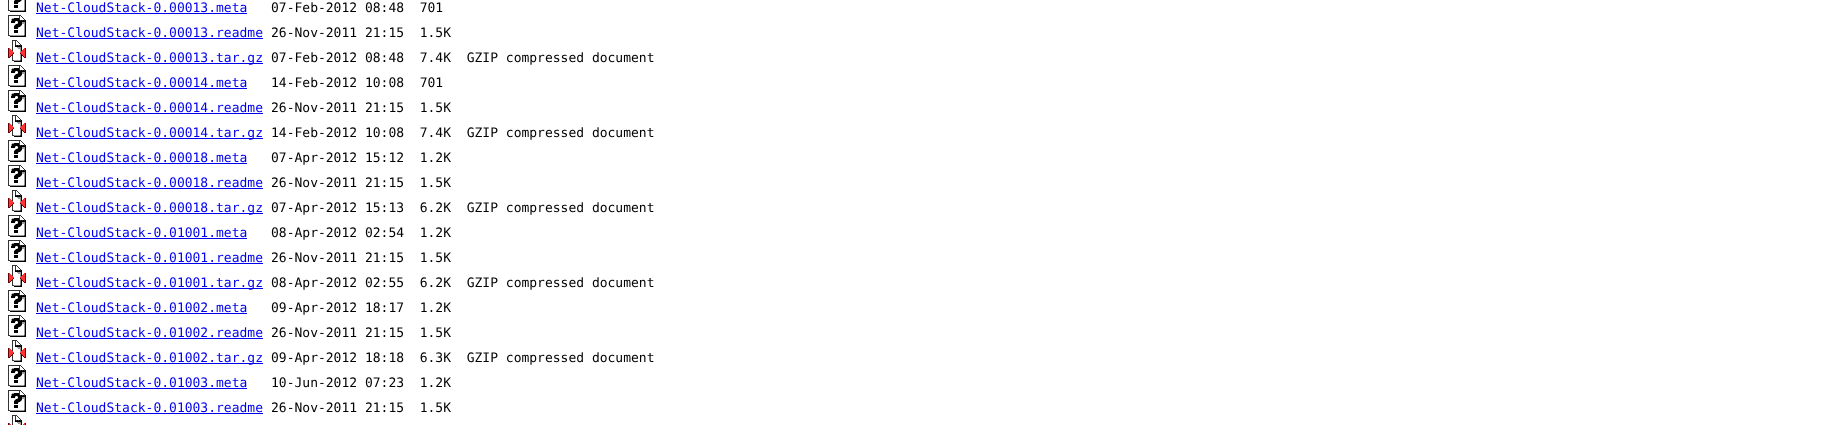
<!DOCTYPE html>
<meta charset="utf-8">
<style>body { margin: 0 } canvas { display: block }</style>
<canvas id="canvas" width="1826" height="425"></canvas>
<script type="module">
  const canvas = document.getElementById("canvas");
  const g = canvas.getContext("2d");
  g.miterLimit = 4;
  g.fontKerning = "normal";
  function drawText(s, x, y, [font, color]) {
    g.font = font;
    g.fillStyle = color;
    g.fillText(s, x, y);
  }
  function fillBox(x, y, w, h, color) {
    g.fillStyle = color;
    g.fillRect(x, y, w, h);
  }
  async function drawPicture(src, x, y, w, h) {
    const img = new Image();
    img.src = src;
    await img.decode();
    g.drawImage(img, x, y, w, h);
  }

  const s1 = ["13px DejaVu Sans Mono", "#0000EE"];
  const s2 = ["13px DejaVu Sans Mono", "#000000"];

  fillBox(0, 0, 1826, 425, "#FFFFFF");
  await drawPicture("pic1.png", 8, 0, 18, 12);
  drawText("Net-CloudStack-0.00013.meta", 36, 12, s1);
  fillBox(36, 13, 211, 1, "#0000EE");
  drawText("07-Feb-2012 08:48  701", 271, 12, s2);
  await drawPicture("pic2.png", 8, 15, 18, 22);
  drawText("Net-CloudStack-0.00013.readme", 36, 37, s1);
  fillBox(36, 38, 227, 1, "#0000EE");
  drawText("26-Nov-2011 21:15  1.5K", 271, 37, s2);
  await drawPicture("pic3.png", 8, 40, 18, 22);
  fillBox(36, 63, 227, 1, "#0000EE");
  drawText("Net-CloudStack-0.00013.tar.gz", 36, 62, s1);
  drawText("07-Feb-2012 08:48  7.4K  GZIP compressed document", 271, 62, s2);
  await drawPicture("pic2.png", 8, 65, 18, 22);
  drawText("Net-CloudStack-0.00014.meta", 36, 87, s1);
  fillBox(36, 88, 211, 1, "#0000EE");
  drawText("14-Feb-2012 10:08  701", 271, 87, s2);
  await drawPicture("pic2.png", 8, 90, 18, 22);
  drawText("Net-CloudStack-0.00014.readme", 36, 112, s1);
  fillBox(36, 113, 227, 1, "#0000EE");
  drawText("26-Nov-2011 21:15  1.5K", 271, 112, s2);
  await drawPicture("pic3.png", 8, 115, 18, 22);
  fillBox(36, 138, 227, 1, "#0000EE");
  drawText("Net-CloudStack-0.00014.tar.gz", 36, 137, s1);
  drawText("14-Feb-2012 10:08  7.4K  GZIP compressed document", 271, 137, s2);
  await drawPicture("pic2.png", 8, 140, 18, 22);
  drawText("Net-CloudStack-0.00018.meta", 36, 162, s1);
  fillBox(36, 163, 211, 1, "#0000EE");
  drawText("07-Apr-2012 15:12  1.2K", 271, 162, s2);
  await drawPicture("pic2.png", 8, 165, 18, 22);
  drawText("Net-CloudStack-0.00018.readme", 36, 187, s1);
  fillBox(36, 188, 227, 1, "#0000EE");
  drawText("26-Nov-2011 21:15  1.5K", 271, 187, s2);
  await drawPicture("pic3.png", 8, 190, 18, 22);
  fillBox(36, 213, 227, 1, "#0000EE");
  drawText("Net-CloudStack-0.00018.tar.gz", 36, 212, s1);
  drawText("07-Apr-2012 15:13  6.2K  GZIP compressed document", 271, 212, s2);
  await drawPicture("pic2.png", 8, 215, 18, 22);
  drawText("Net-CloudStack-0.01001.meta", 36, 237, s1);
  fillBox(36, 238, 211, 1, "#0000EE");
  drawText("08-Apr-2012 02:54  1.2K", 271, 237, s2);
  await drawPicture("pic2.png", 8, 240, 18, 22);
  drawText("Net-CloudStack-0.01001.readme", 36, 262, s1);
  fillBox(36, 263, 227, 1, "#0000EE");
  drawText("26-Nov-2011 21:15  1.5K", 271, 262, s2);
  await drawPicture("pic3.png", 8, 265, 18, 22);
  fillBox(36, 288, 227, 1, "#0000EE");
  drawText("Net-CloudStack-0.01001.tar.gz", 36, 287, s1);
  drawText("08-Apr-2012 02:55  6.2K  GZIP compressed document", 271, 287, s2);
  await drawPicture("pic2.png", 8, 290, 18, 22);
  drawText("Net-CloudStack-0.01002.meta", 36, 312, s1);
  fillBox(36, 313, 211, 1, "#0000EE");
  drawText("09-Apr-2012 18:17  1.2K", 271, 312, s2);
  await drawPicture("pic2.png", 8, 315, 18, 22);
  drawText("Net-CloudStack-0.01002.readme", 36, 337, s1);
  fillBox(36, 338, 227, 1, "#0000EE");
  drawText("26-Nov-2011 21:15  1.5K", 271, 337, s2);
  await drawPicture("pic3.png", 8, 340, 18, 22);
  fillBox(36, 363, 227, 1, "#0000EE");
  drawText("Net-CloudStack-0.01002.tar.gz", 36, 362, s1);
  drawText("09-Apr-2012 18:18  6.3K  GZIP compressed document", 271, 362, s2);
  await drawPicture("pic2.png", 8, 365, 18, 22);
  drawText("Net-CloudStack-0.01003.meta", 36, 387, s1);
  fillBox(36, 388, 211, 1, "#0000EE");
  drawText("10-Jun-2012 07:23  1.2K", 271, 387, s2);
  await drawPicture("pic2.png", 8, 390, 18, 22);
  drawText("Net-CloudStack-0.01003.readme", 36, 412, s1);
  fillBox(36, 413, 227, 1, "#0000EE");
  drawText("26-Nov-2011 21:15  1.5K", 271, 412, s2);
  await drawPicture("pic4.png", 8, 415, 18, 10);
</script>
